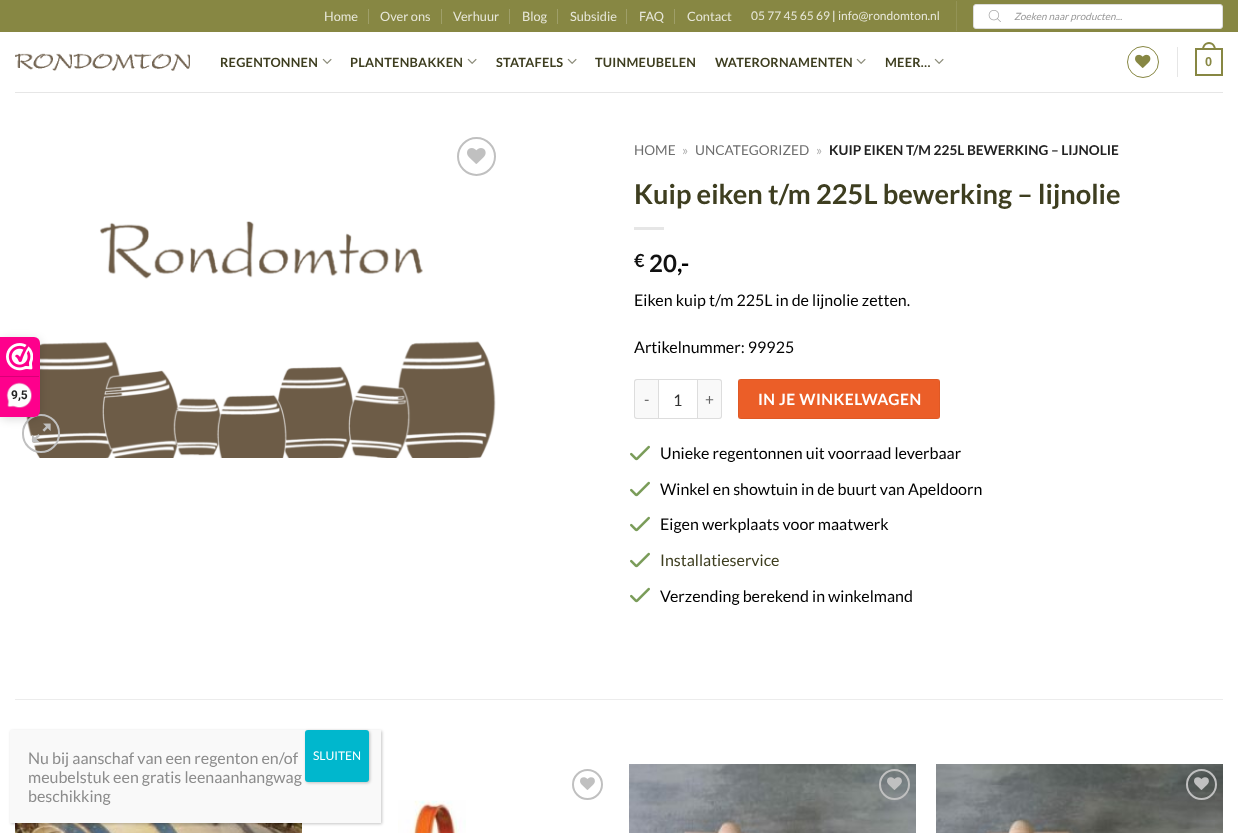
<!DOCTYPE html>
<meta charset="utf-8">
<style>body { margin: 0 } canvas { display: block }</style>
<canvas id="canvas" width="1238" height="833"></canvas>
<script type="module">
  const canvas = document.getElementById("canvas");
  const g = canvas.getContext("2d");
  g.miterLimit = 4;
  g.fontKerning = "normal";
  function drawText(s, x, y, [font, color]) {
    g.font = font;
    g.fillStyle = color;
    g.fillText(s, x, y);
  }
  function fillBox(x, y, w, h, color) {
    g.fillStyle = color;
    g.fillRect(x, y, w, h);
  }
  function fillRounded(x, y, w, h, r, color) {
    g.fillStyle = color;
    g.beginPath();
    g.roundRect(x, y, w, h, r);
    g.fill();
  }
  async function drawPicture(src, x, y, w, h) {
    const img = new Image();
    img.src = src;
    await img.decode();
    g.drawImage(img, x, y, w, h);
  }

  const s1 = ["bold 12px Roboto", "#222222"];
  const s2 = ["12.75px Lato", "#E7E7D9"];
  const s3 = ["12px Lato", "#E7E7D9"];
  const s4 = ["12px Lato", "#FFFFFF"];
  const s5 = ["italic 10px Lato", "#999999"];
  const s6 = ["bold 12.75px Lato", "#3E3E20"];
  const s7 = ["bold 12.75px Liberation Sans", "#878743"];
  const s8 = ["13.6px Lato", "#6E6E6E"];
  const s9 = ["13.6px Lato", "#B2B2B2"];
  const s10 = ["bold 13.6px Lato", "#222222"];
  const s11 = ["bold 27.25px Lato", "#3E3E20"];
  const s12 = ["bold 18px Lato", "#111111"];
  const s13 = ["bold 24px Lato", "#111111"];
  const s14 = ["bold 24px Lato", "#000000"];
  const s15 = ["16px Lato", "#000000"];
  const s16 = ["15.5px Lato", "#666666"];
  const s17 = ["16px Lato", "#333333"];
  const s18 = ["bold 15.5px Lato", "#FFFFFF"];
  const s19 = ["16px Lato", "#3E3E20"];
  const s20 = ["16px Lato", "#8C8C8C"];

  fillBox(0, 0, 1238, 833, "#FFFFFF");
  await drawPicture("pic8.png", 24, 221, 472, 237);
  g.beginPath();
  g.roundRect(23, 415, 36, 37, 18);
  g.strokeStyle = "#C0C0C0";
  g.lineWidth = 2;
  g.stroke();
  await drawPicture("pic9.png", 32, 423, 19, 20);
  g.fillStyle = "rgba(0, 0, 0, 0.15)";
  g.filter = "blur(5px)";
  g.beginPath();
  g.roundRect(0, 339, 40, 80, 6);
  g.fill();
  g.filter = "none";
  g.fillStyle = "#FE008C";
  g.beginPath();
  g.roundRect(0, 337, 40, 80, [0, 6, 6, 0]);
  g.fill();
  await drawPicture("pic1.png", 6, 343, 27, 28);
  fillBox(0, 376, 39, 1, "#D80077");
  await drawPicture("pic2.png", 6, 382, 26, 26);
  drawText("9,5", 11, 399, s1);
  fillBox(0, 0, 1238, 32, "#878743");
  drawText("Home", 324, 21, s2);
  fillBox(368, 9, 1, 15, "#9F9F69");
  drawText("Over ons", 380, 21, s2);
  fillBox(441, 9, 1, 15, "#9F9F69");
  drawText("Verhuur", 453, 21, s2);
  fillBox(509, 9, 1, 15, "#9F9F69");
  drawText("Blog", 522, 21, s2);
  fillBox(557, 9, 1, 15, "#9F9F69");
  drawText("Subsidie", 570, 21, s2);
  fillBox(626, 9, 1, 15, "#9F9F69");
  drawText("FAQ", 639, 21, s2);
  fillBox(674, 9, 1, 15, "#9F9F69");
  drawText("Contact", 687, 21, s2);
  drawText("05 77 45 65 69", 751, 20, s3);
  drawText("|", 832, 20, s4);
  drawText("info@rondomton.nl", 838, 20, s3);
  fillBox(956, 1, 1, 30, "#939356");
  g.fillStyle = "#FFFFFF";
  g.beginPath();
  g.roundRect(973.5, 4.5, 249, 24, 2.5);
  g.fill();
  g.strokeStyle = "#DDDDDD";
  g.lineWidth = 1;
  g.stroke();
  await drawPicture("pic3.png", 988, 10, 13, 12);
  drawText("Zoeken naar producten...", 1014, 20, s5);
  await drawPicture("pic4.png", 15, 53, 175, 18);
  g.letterSpacing = "0.25px";
  drawText("REGENTONNEN", 220, 67, s6);
  await drawPicture("pic5.png", 322, 58, 10, 6);
  drawText("PLANTENBAKKEN", 350, 67, s6);
  await drawPicture("pic5.png", 467, 58, 10, 6);
  drawText("STATAFELS", 496, 67, s6);
  await drawPicture("pic5.png", 567, 58, 10, 6);
  drawText("TUINMEUBELEN", 595, 67, s6);
  drawText("WATERORNAMENTEN", 715, 67, s6);
  await drawPicture("pic5.png", 856, 58, 10, 6);
  drawText("MEER…", 885, 67, s6);
  await drawPicture("pic5.png", 934, 58, 10, 6);
  g.beginPath();
  g.arc(1143, 62, 15.5, 0, Math.PI * 2);
  g.strokeStyle = "#878743";
  g.stroke();
  await drawPicture("pic6.png", 1135, 54, 16, 14);
  fillBox(1177, 47, 1, 30, "#E6E6E6");
  g.lineWidth = 2;
  g.strokeRect(1196, 49, 26, 26);
  g.fillStyle = "#878743";
  g.beginPath();
  g.moveTo(1209, 42);
  g.bezierCurveTo(1213.5, 42, 1216, 46, 1216, 50);
  g.lineTo(1202, 50);
  g.bezierCurveTo(1202, 46, 1204.5, 42, 1209, 42);
  g.closePath();
  g.moveTo(1209, 44);
  g.bezierCurveTo(1212.5, 44, 1214, 47, 1214, 50);
  g.lineTo(1204, 50);
  g.bezierCurveTo(1204, 47, 1205.5, 44, 1209, 44);
  g.closePath();
  g.fill("evenodd");
  drawText("0", 1205, 66, s7);
  fillBox(15, 92, 1208, 1, "#E6E6E6");
  g.beginPath();
  g.arc(476.5, 156.5, 18.5, 0, Math.PI * 2);
  g.strokeStyle = "#C0C0C0";
  g.stroke();
  await drawPicture("pic7.png", 467, 148, 19, 16);
  g.letterSpacing = "0px";
  drawText("HOME", 634, 155, s8);
  drawText("»", 682, 155, s9);
  drawText("UNCATEGORIZED", 695, 155, s8);
  drawText("»", 816, 155, s9);
  drawText("KUIP EIKEN T/M 225L BEWERKING – LIJNOLIE", 829, 155, s10);
  drawText("Kuip eiken t/m 225L bewerking – lijnolie", 634, 204, s11);
  fillBox(634, 227, 30, 3, "#E6E6E6");
  drawText("€", 634, 267, s12);
  drawText("20", 649, 272, s13);
  drawText(",-", 677, 272, s14);
  drawText("Eiken kuip t/m 225L in de lijnolie zetten.", 634, 306, s15);
  drawText("Artikelnummer: 99925", 634, 353, s15);
  g.fillStyle = "#F9F9F9";
  g.beginPath();
  g.roundRect(634, 379, 24, 40, [3, 0, 0, 3]);
  g.fill();
  g.fillStyle = "#DDDDDD";
  g.beginPath();
  g.moveTo(637, 379);
  g.lineTo(658, 379);
  g.lineTo(658, 419);
  g.lineTo(637, 419);
  g.bezierCurveTo(635, 419, 634, 418, 634, 416);
  g.lineTo(634, 382);
  g.bezierCurveTo(634, 380, 635, 379, 637, 379);
  g.closePath();
  g.moveTo(637, 380);
  g.lineTo(658, 380);
  g.lineTo(658, 418);
  g.lineTo(637, 418);
  g.bezierCurveTo(636, 418, 635, 417, 635, 416);
  g.lineTo(635, 382);
  g.bezierCurveTo(635, 381, 636, 380, 637, 380);
  g.closePath();
  g.fill("evenodd");
  g.letterSpacing = "0.5px";
  drawText("-", 644, 405, s16);
  g.strokeStyle = "#DDDDDD";
  g.lineWidth = 1;
  g.strokeRect(658.5, 379.5, 39, 39);
  g.letterSpacing = "0px";
  drawText("1", 673, 406, s17);
  g.fillStyle = "#F9F9F9";
  g.beginPath();
  g.roundRect(698, 379, 24, 40, [0, 3, 3, 0]);
  g.fill();
  g.fillStyle = "#DDDDDD";
  g.beginPath();
  g.moveTo(698, 379);
  g.lineTo(719, 379);
  g.bezierCurveTo(721, 379, 722, 380, 722, 382);
  g.lineTo(722, 416);
  g.bezierCurveTo(722, 418, 721, 419, 719, 419);
  g.lineTo(698, 419);
  g.closePath();
  g.moveTo(698, 380);
  g.lineTo(719, 380);
  g.bezierCurveTo(720, 380, 721, 381, 721, 382);
  g.lineTo(721, 416);
  g.bezierCurveTo(721, 417, 720, 418, 719, 418);
  g.lineTo(698, 418);
  g.closePath();
  g.fill("evenodd");
  g.letterSpacing = "0.5px";
  drawText("+", 705, 405, s16);
  fillRounded(738, 379, 202, 40, 3, "#EB5E28");
  g.strokeStyle = "rgba(0, 0, 0, 0.05)";
  g.strokeRect(738.5, 379.5, 201, 39);
  drawText("IN JE WINKELWAGEN", 758, 405, s18);
  await drawPicture("pic10.png", 630, 445, 20, 16);
  g.letterSpacing = "0px";
  drawText("Unieke regentonnen uit voorraad leverbaar", 660, 459, s15);
  await drawPicture("pic10.png", 630, 481, 20, 16);
  drawText("Winkel en showtuin in de buurt van Apeldoorn", 660, 495, s15);
  await drawPicture("pic10.png", 630, 516, 20, 16);
  drawText("Eigen werkplaats voor maatwerk", 660, 530, s15);
  await drawPicture("pic10.png", 630, 552, 20, 16);
  drawText("Installatieservice", 660, 566, s19);
  await drawPicture("pic10.png", 630, 587, 20, 16);
  drawText("Verzending berekend in winkelmand", 660, 602, s15);
  fillBox(15, 699, 1208, 1, "#ECECEC");
  await drawPicture("pic11.png", 15, 823, 287, 10);
  g.beginPath();
  g.arc(587.5, 784.5, 14.5, 0, Math.PI * 2);
  g.strokeStyle = "#C0C0C0";
  g.lineWidth = 2;
  g.stroke();
  await drawPicture("pic12.png", 580, 777, 15, 13);
  await drawPicture("pic13.png", 398, 800, 68, 33);
  await drawPicture("pic14.png", 629, 764, 287, 69);
  g.beginPath();
  g.arc(894.5, 784.5, 14.5, 0, Math.PI * 2);
  g.stroke();
  await drawPicture("pic15.png", 887, 777, 15, 13);
  await drawPicture("pic16.png", 936, 764, 287, 69);
  g.beginPath();
  g.arc(1201.5, 784.5, 14.5, 0, Math.PI * 2);
  g.stroke();
  await drawPicture("pic17.png", 1194, 777, 15, 13);
  g.fillStyle = "rgba(2, 2, 2, 0.23)";
  g.filter = "blur(1.5px)";
  g.beginPath();
  g.rect(11, 731, 371, 93);
  g.fill();
  g.filter = "none";
  fillBox(10, 730, 371, 93, "#F9F9F9");
  drawText("Nu bij aanschaf van een regenton en/of", 28, 764, s20);
  drawText("meubelstuk een gratis leenaanhangwag", 28, 783, s20);
  drawText("beschikking", 28, 802, s20);
  g.fillStyle = "rgba(2, 2, 2, 0.23)";
  g.filter = "blur(1.5px)";
  g.beginPath();
  g.roundRect(306, 731, 64, 52, 3);
  g.fill();
  g.filter = "none";
  fillRounded(305, 730, 64, 52, 3, "#00B7CD");
  drawText("SLUITEN", 313, 760, s4);
</script>
